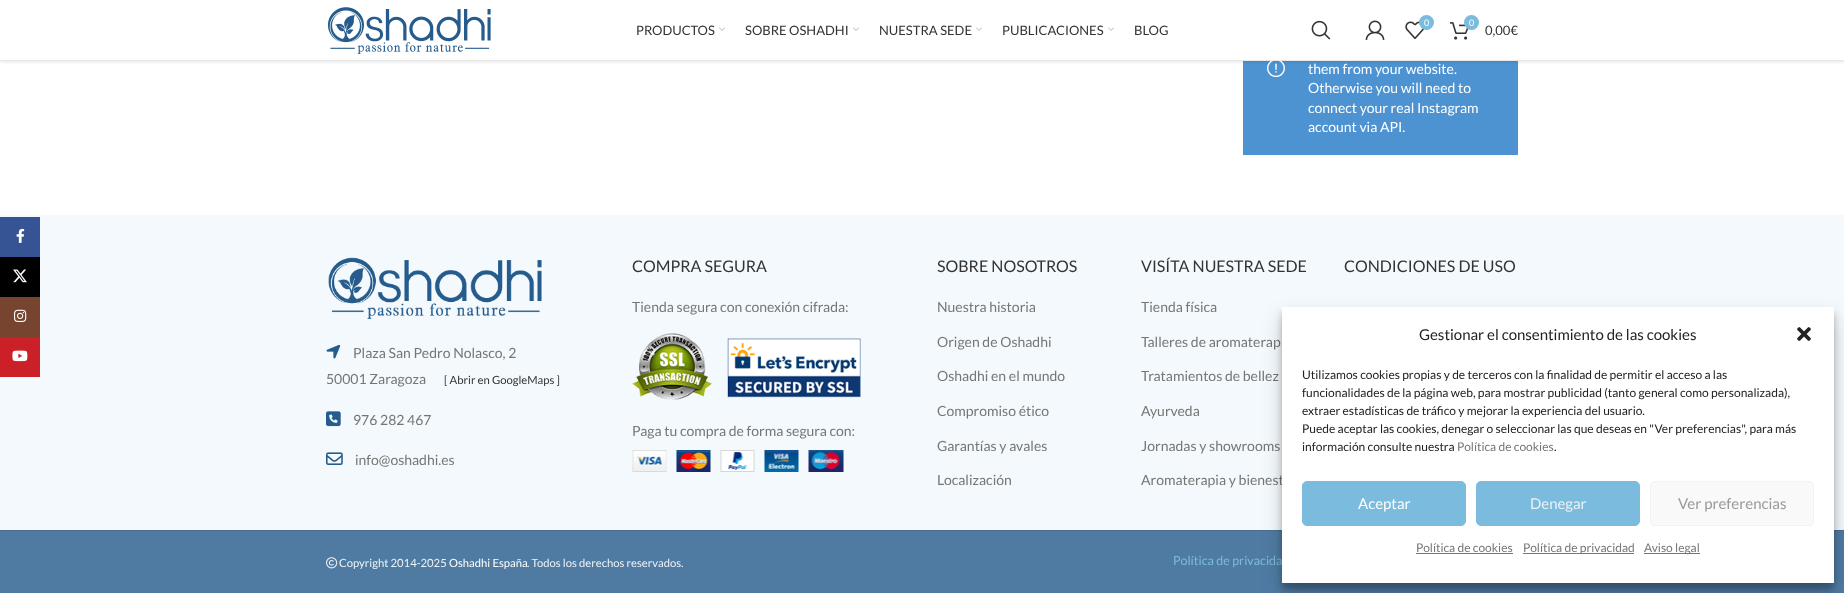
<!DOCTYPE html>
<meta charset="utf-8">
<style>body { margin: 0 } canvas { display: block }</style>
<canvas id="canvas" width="1844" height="593"></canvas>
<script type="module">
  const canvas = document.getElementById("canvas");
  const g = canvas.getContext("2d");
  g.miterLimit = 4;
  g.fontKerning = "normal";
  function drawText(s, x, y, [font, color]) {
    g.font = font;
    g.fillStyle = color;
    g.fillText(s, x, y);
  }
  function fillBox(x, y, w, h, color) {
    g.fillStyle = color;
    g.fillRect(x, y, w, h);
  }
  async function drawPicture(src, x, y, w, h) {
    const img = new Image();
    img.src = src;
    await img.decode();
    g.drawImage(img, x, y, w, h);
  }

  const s1 = ["13px Lato", "#333333"];
  const s2 = ["9px Lato", "#FFFFFF"];
  const s3 = ["14px Lato", "#FFFFFF"];
  const s4 = ["16px Lato", "#333333"];
  const s5 = ["14px Lato", "#767676"];
  const s6 = ["11.25px Lato", "#333333"];
  const s7 = ["11.25px Lato", "#EDF2F6"];
  const s8 = ["11.25px Lato", "#FFFFFF"];
  const s9 = ["12.5px Lato", "#7BBBDD"];
  const s10 = ["15px Lato", "#222222"];
  const s11 = ["12px Lato", "#222222"];
  const s12 = ["12px Lato", "#767676"];
  const s13 = ["15px Lato", "#FFFFFF"];
  const s14 = ["15px Lato", "#EDF2F6"];
  const s15 = ["15px Lato", "#999999"];

  fillBox(0, 0, 1844, 593, "#FFFFFF");
  fillBox(0, 215, 1844, 315, "#F3F9FC");
  fillBox(0, 217, 40, 40, "#365493");
  await drawPicture("pic1.png", 16, 228, 9, 15);
  fillBox(0, 257, 40, 40, "#000000");
  await drawPicture("pic2.png", 13, 269, 14, 14);
  fillBox(0, 297, 40, 40, "#774430");
  await drawPicture("pic3.png", 14, 309, 13, 13);
  fillBox(0, 337, 40, 40, "#CB2027");
  await drawPicture("pic4.png", 12, 350, 16, 12);
  fillBox(1243, 61, 275, 94, "#4D93D1");
  await drawPicture("pic11.png", 1267, 61, 18, 17);
  g.fillStyle = "rgba(0, 0, 0, 0.1)";
  g.filter = "blur(1.5px)";
  g.beginPath();
  g.rect(0, 1, 1844, 61);
  g.fill();
  g.filter = "none";
  fillBox(0, 0, 1844, 60, "#FFFFFF");
  fillBox(0, 60, 1844, 1, "#E8E8E8");
  await drawPicture("pic5.png", 328, 7, 163, 47);
  drawText("PRODUCTOS", 636, 35, s1);
  await drawPicture("pic6.png", 719, 27, 6, 4);
  drawText("SOBRE OSHADHI", 745, 35, s1);
  await drawPicture("pic6.png", 853, 27, 6, 4);
  drawText("NUESTRA SEDE", 879, 35, s1);
  await drawPicture("pic6.png", 976, 27, 6, 4);
  drawText("PUBLICACIONES", 1002, 35, s1);
  await drawPicture("pic6.png", 1108, 27, 6, 4);
  drawText("BLOG", 1134, 35, s1);
  await drawPicture("pic7.png", 1311, 20, 20, 20);
  await drawPicture("pic8.png", 1365, 20, 20, 20);
  await drawPicture("pic9.png", 1405, 21, 20, 18);
  g.fillStyle = "#7BBBDD";
  g.beginPath();
  g.arc(1426.5, 22.5, 7.5, 0, Math.PI * 2);
  g.fill();
  drawText("0", 1424, 26, s2);
  await drawPicture("pic10.png", 1450, 22, 19, 18);
  g.fillStyle = "#7BBBDD";
  g.beginPath();
  g.arc(1471.5, 22.5, 7.5, 0, Math.PI * 2);
  g.fill();
  drawText("0", 1469, 26, s2);
  drawText("0,00€", 1485, 35, s1);
  drawText("them from your website.", 1308, 74, s3);
  drawText("Otherwise you will need to", 1308, 93, s3);
  drawText("connect your real Instagram", 1308, 113, s3);
  drawText("account via API.", 1308, 132, s3);
  drawText("COMPRA SEGURA", 632, 272, s4);
  drawText("Tienda segura con conexión cifrada:", 632, 312, s5);
  await drawPicture("pic12.png", 632, 333, 229, 67);
  drawText("Paga tu compra de forma segura con:", 632, 436, s5);
  await drawPicture("pic13.png", 632, 450, 212, 22);
  drawText("SOBRE NOSOTROS", 937, 272, s4);
  drawText("Nuestra historia", 937, 312, s5);
  drawText("Origen de Oshadhi", 937, 347, s5);
  drawText("Oshadhi en el mundo", 937, 381, s5);
  drawText("Compromiso ético", 937, 416, s5);
  drawText("Garantías y avales", 937, 451, s5);
  drawText("Localización", 937, 485, s5);
  drawText("VISÍTA NUESTRA SEDE", 1141, 272, s4);
  drawText("Tienda física", 1141, 312, s5);
  drawText("Talleres de aromaterap", 1141, 347, s5);
  drawText("Tratamientos de bellez", 1141, 381, s5);
  drawText("Ayurveda", 1141, 416, s5);
  drawText("Jornadas y showrooms", 1141, 451, s5);
  drawText("Aromaterapia y bienest", 1141, 485, s5);
  drawText("CONDICIONES DE USO", 1344, 272, s4);
  await drawPicture("pic14.png", 328, 257, 214, 62);
  await drawPicture("pic15.png", 326, 344, 15, 15);
  drawText("Plaza San Pedro Nolasco, 2", 353, 358, s5);
  drawText("50001 Zaragoza", 326, 384, s5);
  drawText("[ Abrir en GoogleMaps ]", 444, 384, s6);
  await drawPicture("pic16.png", 326, 411, 15, 16);
  drawText("976 282 467", 353, 425, s5);
  await drawPicture("pic17.png", 326, 452, 17, 13);
  drawText("info@oshadhi.es", 355, 465, s5);
  fillBox(0, 531, 1844, 62, "#4F7BA3");
  fillBox(0, 530, 1844, 1, "#476E92");
  await drawPicture("pic18.png", 326, 557, 12, 12);
  drawText("Copyright 2014-2025", 339, 567, s7);
  drawText("Oshadhi España", 449, 567, s8);
  drawText(". Todos los derechos reservados.", 527, 567, s7);
  drawText("Política de privacida", 1173, 565, s9);
  g.fillStyle = "rgba(0, 0, 0, 0.23)";
  g.filter = "blur(3px)";
  g.beginPath();
  g.rect(1282, 313, 552, 276);
  g.fill();
  g.filter = "none";
  g.fillStyle = "rgba(0, 0, 0, 0.19)";
  g.filter = "blur(10px)";
  g.beginPath();
  g.rect(1282, 317, 552, 276);
  g.fill();
  g.filter = "none";
  fillBox(1282, 307, 552, 276, "#FFFFFF");
  drawText("Gestionar el consentimiento de las cookies", 1419, 340, s10);
  await drawPicture("pic19.png", 1797, 327, 14, 14);
  drawText("Utilizamos cookies propias y de terceros con la finalidad de permitir el acceso a las", 1302, 379, s11);
  drawText("funcionalidades de la página web, para mostrar publicidad (tanto general como personalizada),", 1302, 397, s11);
  drawText("extraer estadísticas de tráfico y mejorar la experiencia del usuario.", 1302, 415, s11);
  drawText("Puede aceptar las cookies, denegar o seleccionar las que deseas en \"Ver preferencias\", para más", 1302, 433, s11);
  drawText("información consulte nuestra", 1302, 451, s11);
  drawText("Política de cookies", 1457, 451, s12);
  drawText(".", 1554, 451, s11);
  g.fillStyle = "#7BBBDD";
  g.beginPath();
  g.roundRect(1302.5, 481.5, 163, 44, 4.5);
  g.fill();
  g.strokeStyle = "#7BBBDD";
  g.stroke();
  drawText("Aceptar", 1358, 509, s13);
  g.fillStyle = "#7BBBDD";
  g.beginPath();
  g.roundRect(1476.5, 481.5, 163, 44, 4.5);
  g.fill();
  g.stroke();
  drawText("Denegar", 1530, 509, s14);
  g.fillStyle = "#F9F9F9";
  g.beginPath();
  g.roundRect(1650.5, 481.5, 163, 44, 4.5);
  g.fill();
  g.strokeStyle = "#F2F2F2";
  g.stroke();
  drawText("Ver preferencias", 1678, 509, s15);
  drawText("Política de cookies", 1416, 552, s12);
  fillBox(1416, 553, 97, 1, "#777777");
  fillBox(1523, 553, 111, 1, "#777777");
  drawText("Política de privacidad", 1523, 552, s12);
  fillBox(1644, 553, 56, 1, "#777777");
  drawText("Aviso legal", 1644, 552, s12);
</script>
